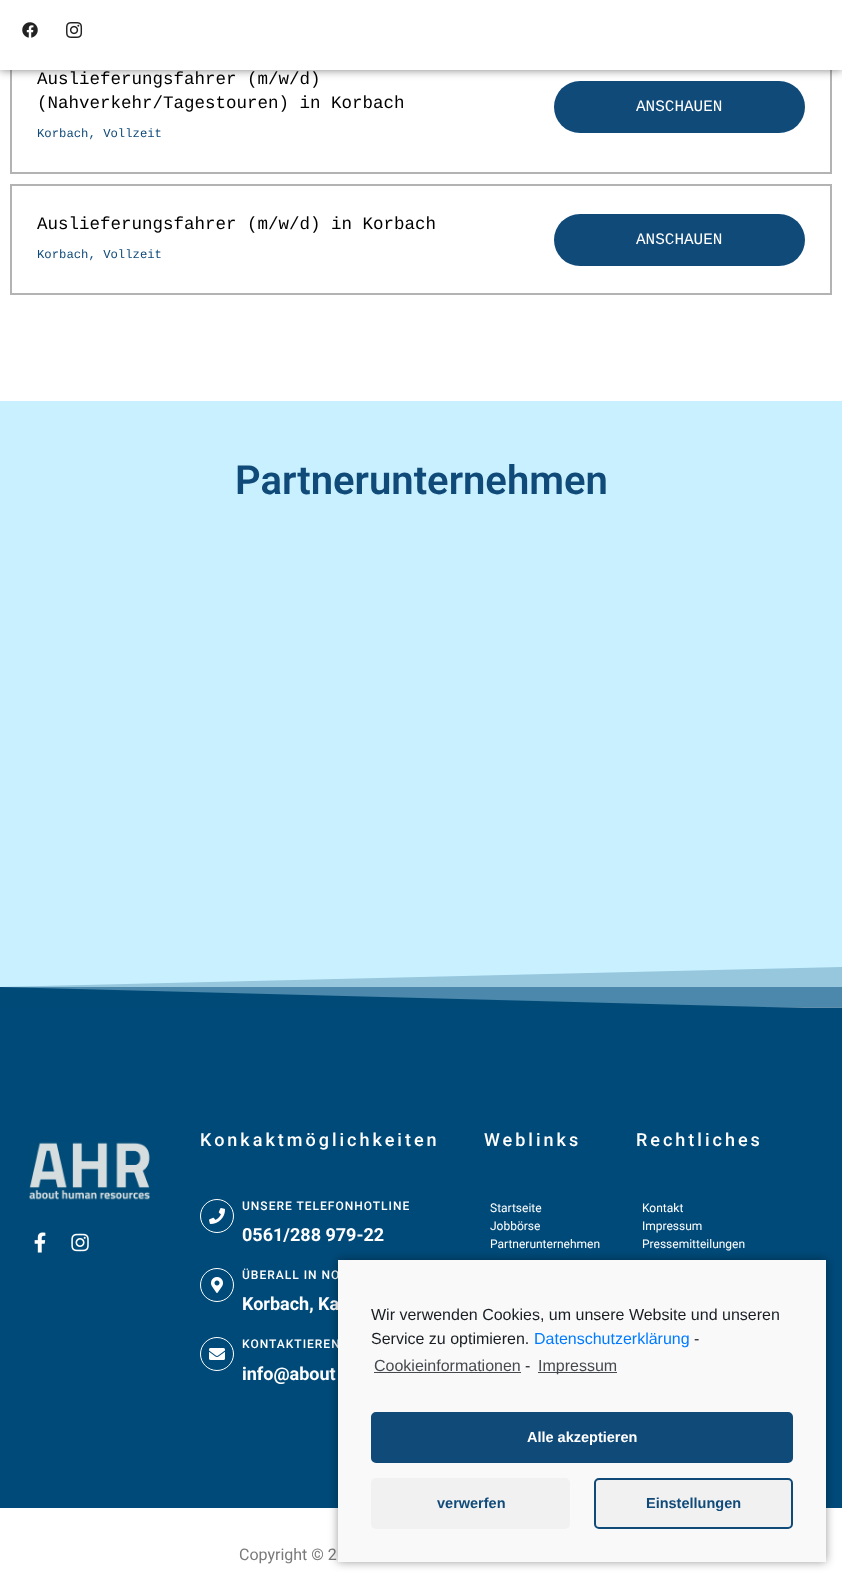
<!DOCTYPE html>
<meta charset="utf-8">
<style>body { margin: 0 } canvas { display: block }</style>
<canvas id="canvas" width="842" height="1578"></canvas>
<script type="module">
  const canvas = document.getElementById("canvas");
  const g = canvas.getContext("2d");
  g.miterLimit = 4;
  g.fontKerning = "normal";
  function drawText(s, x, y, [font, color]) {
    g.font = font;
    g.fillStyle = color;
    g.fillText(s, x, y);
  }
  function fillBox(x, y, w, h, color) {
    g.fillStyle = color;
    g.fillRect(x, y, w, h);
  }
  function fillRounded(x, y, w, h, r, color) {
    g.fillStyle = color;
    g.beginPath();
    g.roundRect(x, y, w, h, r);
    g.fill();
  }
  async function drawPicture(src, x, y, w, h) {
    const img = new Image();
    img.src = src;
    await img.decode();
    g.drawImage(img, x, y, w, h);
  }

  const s1 = ["17.5px Liberation Mono", "#000000"];
  const s2 = ["12.25px Liberation Mono", "#104A79"];
  const s3 = ["16px Liberation Mono", "#FFFFFF"];
  const s4 = ["600 40px Roboto", "#104A79"];
  const s5 = ["500 18px Roboto", "#FFFFFF"];
  const s6 = ["500 12px Roboto", "#FFFFFF"];
  const s7 = ["bold 18px Roboto", "#FFFFFF"];
  const s8 = ["12px Roboto", "#FFFFFF"];
  const s9 = ["16px Roboto", "#7A7A7A"];
  const s10 = ["16px Liberation Sans", "#191E23"];
  const s11 = ["16px Liberation Sans", "#007BFF"];
  const s12 = ["16px Liberation Sans", "#464A4E"];
  const s13 = ["bold 14.5px Liberation Sans", "#FFFFFF"];
  const s14 = ["bold 14.5px Liberation Sans", "#104A79"];

  fillBox(0, 0, 842, 1578, "#FFFFFF");
  fillBox(768, 1007, 74, 1, "#80A5BC");
  g.beginPath();
  g.rect(11, 40, 820, 133);
  g.strokeStyle = "#B3B3B3";
  g.lineWidth = 2;
  g.stroke();
  fillRounded(554, 81, 251, 52, 26, "#104A79");
  g.fillStyle = "rgba(0, 0, 0, 0.5)";
  g.filter = "blur(5px)";
  g.beginPath();
  g.rect(0, 0, 842, 70);
  g.fill();
  g.filter = "none";
  fillBox(0, 0, 842, 70, "#FFFFFF");
  await drawPicture("pic1.png", 22, 22, 16, 16);
  await drawPicture("pic2.png", 66, 22, 17, 16);
  drawText("Auslieferungsfahrer (m/w/d)", 37, 84, s1);
  drawText("(Nahverkehr/Tagestouren) in Korbach", 37, 108, s1);
  drawText("Korbach, Vollzeit", 37, 137, s2);
  drawText("ANSCHAUEN", 636, 111, s3);
  g.beginPath();
  g.rect(11, 185, 820, 109);
  g.stroke();
  drawText("Auslieferungsfahrer (m/w/d) in Korbach", 37, 229, s1);
  drawText("Korbach, Vollzeit", 37, 258, s2);
  fillRounded(554, 214, 251, 52, 26, "#104A79");
  drawText("ANSCHAUEN", 636, 244, s3);
  fillBox(0, 401, 842, 586, "#C8F0FF");
  drawText("Partnerunternehmen", 235, 494, s4);
  fillBox(1, 987, 841, 20, "#649DBC");
  g.fillStyle = "#004A79";
  g.beginPath();
  g.moveTo(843, 1009);
  g.lineTo(-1, 1009);
  g.lineTo(-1, 987);
  g.closePath();
  g.fill();
  g.fillStyle = "rgba(0, 74, 121, 0.25)";
  g.beginPath();
  g.moveTo(-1, 1009);
  g.lineTo(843, 1009);
  g.lineTo(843, 967);
  g.lineTo(-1, 987);
  g.closePath();
  g.fill();
  fillBox(0, 1008, 842, 500, "#004A79");
  await drawPicture("pic3.png", 29, 1142, 121, 58);
  await drawPicture("pic4.png", 34, 1232, 12, 21);
  await drawPicture("pic5.png", 71, 1233, 18, 19);
  g.letterSpacing = "3px";
  drawText("Konkaktmöglichkeiten", 200, 1146, s5);
  g.beginPath();
  g.arc(217, 1216, 16.5, 0, Math.PI * 2);
  g.strokeStyle = "#FFFFFF";
  g.lineWidth = 1;
  g.stroke();
  await drawPicture("pic6.png", 209, 1208, 16, 16);
  g.letterSpacing = "1px";
  drawText("UNSERE TELEFONHOTLINE", 242, 1210, s6);
  g.letterSpacing = "0px";
  drawText("0561/288 979-22", 242, 1241, s7);
  g.beginPath();
  g.arc(217, 1285, 16.5, 0, Math.PI * 2);
  g.stroke();
  await drawPicture("pic7.png", 211, 1277, 12, 16);
  g.letterSpacing = "1px";
  drawText("ÜBERALL IN NO", 242, 1279, s6);
  g.letterSpacing = "0px";
  drawText("Korbach, Ka", 242, 1310, s7);
  g.beginPath();
  g.arc(217, 1354, 16.5, 0, Math.PI * 2);
  g.stroke();
  await drawPicture("pic8.png", 209, 1348, 16, 12);
  g.letterSpacing = "1px";
  drawText("KONTAKTIEREN", 242, 1348, s6);
  g.letterSpacing = "0px";
  drawText("info@about", 242, 1380, s7);
  g.letterSpacing = "3px";
  drawText("Weblinks", 484, 1146, s5);
  g.letterSpacing = "0px";
  drawText("Startseite", 490, 1212, s8);
  drawText("Jobbörse", 490, 1230, s8);
  drawText("Partnerunternehmen", 490, 1248, s8);
  g.letterSpacing = "3px";
  drawText("Rechtliches", 636, 1146, s5);
  g.letterSpacing = "0px";
  drawText("Kontakt", 642, 1212, s8);
  drawText("Impressum", 642, 1230, s8);
  drawText("Pressemitteilungen", 642, 1248, s8);
  drawText("Copyright © 2", 239, 1560, s9);
  g.fillStyle = "rgba(0, 0, 0, 0.4)";
  g.filter = "blur(5px)";
  g.beginPath();
  g.rect(338, 1260, 488, 302);
  g.fill();
  g.filter = "none";
  fillBox(338, 1260, 488, 302, "#F9F9F9");
  drawText("Wir verwenden Cookies, um unsere Website und unseren", 371, 1320, s10);
  drawText("Service zu optimieren.", 371, 1344, s10);
  drawText("Datenschutzerklärung", 534, 1344, s11);
  drawText("-", 694, 1344, s10);
  drawText("Cookieinformationen", 374, 1371, s12);
  fillBox(374, 1372, 147, 1, "#464A4E");
  drawText("-", 525, 1371, s10);
  fillBox(538, 1372, 79, 1, "#464A4E");
  drawText("Impressum", 538, 1371, s12);
  g.fillStyle = "#104A79";
  g.beginPath();
  g.roundRect(372, 1413, 420, 49, 4);
  g.fill();
  g.strokeStyle = "#104A79";
  g.lineWidth = 2;
  g.stroke();
  drawText("Alle akzeptieren", 527, 1442, s13);
  fillRounded(371, 1478, 199, 51, 5, "#F1F1F1");
  drawText("verwerfen", 437, 1508, s14);
  g.fillStyle = "#F1F1F1";
  g.beginPath();
  g.roundRect(595, 1479, 197, 49, 4);
  g.fill();
  g.stroke();
  drawText("Einstellungen", 646, 1508, s14);
</script>
